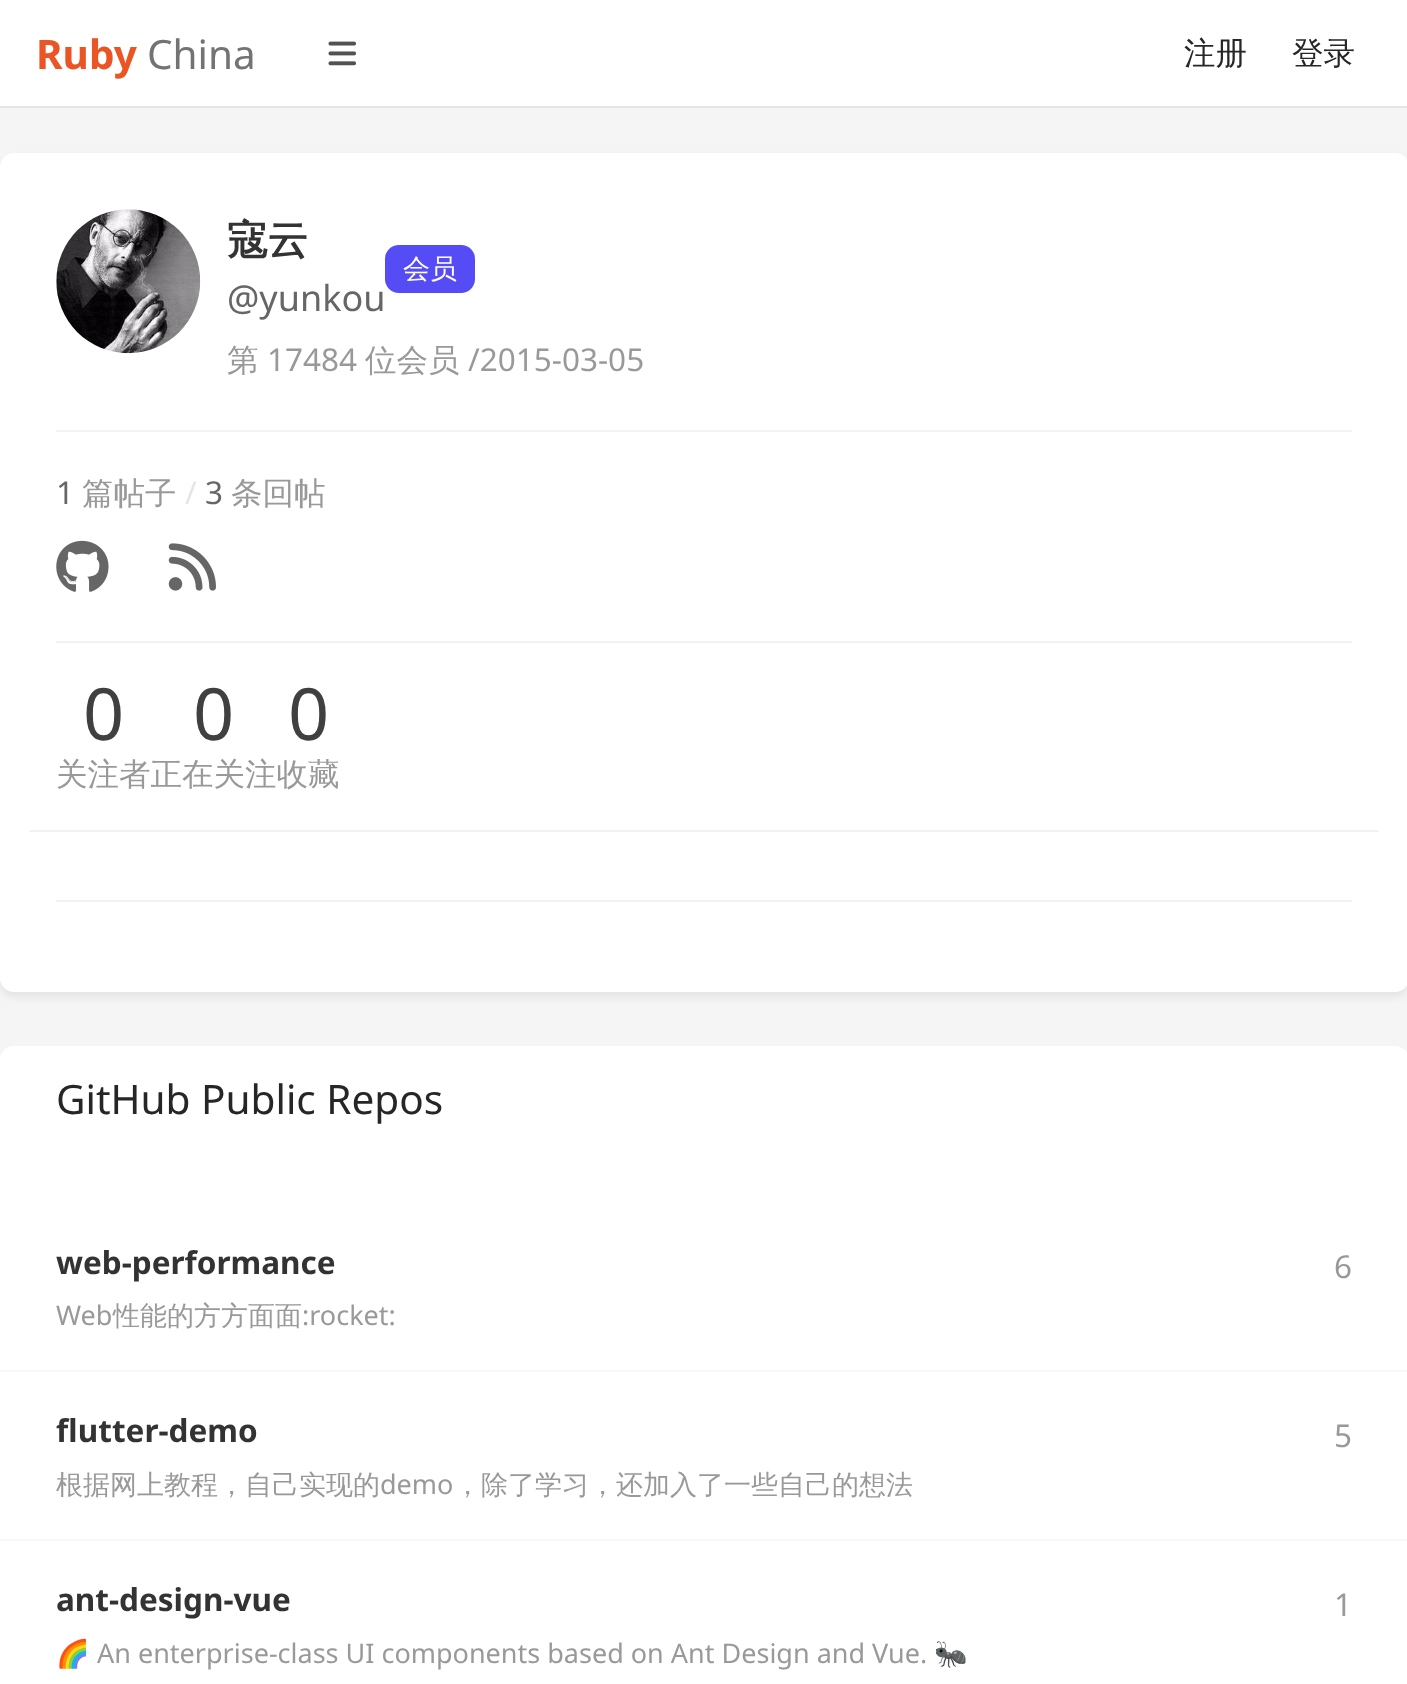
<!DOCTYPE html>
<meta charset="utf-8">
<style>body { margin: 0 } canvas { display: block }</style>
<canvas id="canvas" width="1407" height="1684"></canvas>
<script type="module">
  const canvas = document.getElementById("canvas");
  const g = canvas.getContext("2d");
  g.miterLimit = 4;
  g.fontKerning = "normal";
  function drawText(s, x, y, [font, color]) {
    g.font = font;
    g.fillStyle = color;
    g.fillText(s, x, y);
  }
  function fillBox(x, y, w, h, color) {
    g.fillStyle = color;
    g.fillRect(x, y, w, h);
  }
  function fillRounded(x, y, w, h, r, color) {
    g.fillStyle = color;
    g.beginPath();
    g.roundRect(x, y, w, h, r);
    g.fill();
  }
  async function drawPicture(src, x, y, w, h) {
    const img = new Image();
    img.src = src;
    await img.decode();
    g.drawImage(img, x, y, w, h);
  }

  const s1 = ["bold 40.5px Noto Sans", "#EB5424"];
  const s2 = ["40.5px Noto Sans", "#737373"];
  const s3 = ["500 31.5px WenQuanYi Zen Hei", "#262626"];
  const s4 = ["bold 40.5px WenQuanYi Zen Hei", "#333333"];
  const s5 = ["36px Noto Sans", "#666666"];
  const s6 = ["500 27px WenQuanYi Zen Hei", "#FFFFFF"];
  const s7 = ["500 31.5px WenQuanYi Zen Hei", "#999999"];
  const s8 = ["31.5px Noto Sans", "#999999"];
  const s9 = ["31.5px Noto Sans", "#666666"];
  const s10 = ["31.5px Noto Sans", "#E6E6E6"];
  const s11 = ["72px Noto Sans", "#404040"];
  const s12 = ["40.5px Noto Sans", "#262626"];
  const s13 = ["bold 31.5px Noto Sans", "#333333"];
  const s14 = ["27px Noto Sans", "#999999"];
  const s15 = ["500 27px WenQuanYi Zen Hei", "#999999"];
  const s16 = ["27px Noto Color Emoji", "#999999"];

  fillBox(0, 0, 1407, 1684, "#F5F5F5");
  fillBox(0, 0, 1407, 106, "#FFFFFF");
  fillBox(0, 106, 1407, 2, "#E5E5E5");
  drawText("Ruby", 36, 69, s1);
  drawText("China", 147, 69, s2);
  await drawPicture("pic1.png", 328, 41, 29, 25);
  drawText("注册", 1184, 64, s3);
  drawText("登录", 1292, 64, s3);
  g.fillStyle = "rgba(0, 0, 0, 0.07)";
  g.filter = "blur(4.5px)";
  g.beginPath();
  g.roundRect(0, 158, 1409, 839, 14);
  g.fill();
  g.filter = "none";
  fillRounded(0, 153, 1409, 839, 14, "#FFFFFF");
  await drawPicture("pic2.png", 56, 209, 145, 145);
  drawText("寇云", 227, 254, s4);
  drawText("@yunkou", 227, 311, s5);
  fillRounded(385, 245, 90, 48, 14, "#564CF5");
  drawText("会员", 403, 278, s6);
  drawText("第", 227, 371, s7);
  drawText("17484", 267, 371, s8);
  drawText("位会员", 365, 371, s7);
  drawText("/2015-03-05", 468, 371, s8);
  fillBox(56, 430, 1296, 2, "#F3F3F3");
  drawText("1", 56, 504, s9);
  drawText("篇帖子", 82, 504, s7);
  drawText("/", 185, 504, s10);
  drawText("3", 205, 504, s9);
  drawText("条回帖", 231, 504, s7);
  await drawPicture("pic3.png", 56, 540, 53, 52);
  await drawPicture("pic4.png", 168, 543, 48, 48);
  fillBox(56, 641, 1296, 2, "#F2F2F2");
  drawText("0", 83, 740, s11);
  drawText("关注者正在关注收藏", 56, 785, s7);
  drawText("0", 193, 740, s11);
  drawText("0", 288, 740, s11);
  fillBox(29, 830, 1350, 2, "#F2F2F2");
  fillBox(56, 900, 1296, 2, "#F2F2F2");
  fillRounded(0, 1046, 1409, 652, 14, "#FFFFFF");
  drawText("GitHub Public Repos", 56, 1114, s12);
  fillBox(0, 1370, 1407, 2, "#F7F7F7");
  drawText("web-performance", 56, 1274, s13);
  drawText("6", 1334, 1278, s8);
  drawText("Web", 56, 1325, s14);
  drawText("性能的方方面面", 113, 1325, s15);
  drawText(":rocket:", 302, 1325, s14);
  fillBox(0, 1539, 1407, 2, "#F7F7F7");
  drawText("flutter-demo", 56, 1442, s13);
  drawText("5", 1334, 1447, s8);
  drawText("根据网上教程，自己实现的", 56, 1494, s15);
  drawText("demo", 380, 1494, s14);
  drawText("，除了学习，还加入了一些自己的想法", 454, 1494, s15);
  drawText("ant-design-vue", 56, 1611, s13);
  drawText("1", 1334, 1616, s8);
  drawText("🌈", 56, 1663, s16);
  drawText("An enterprise-class UI components based on Ant Design and Vue.", 97, 1663, s14);
  drawText("🐜", 934, 1663, s16);
</script>
